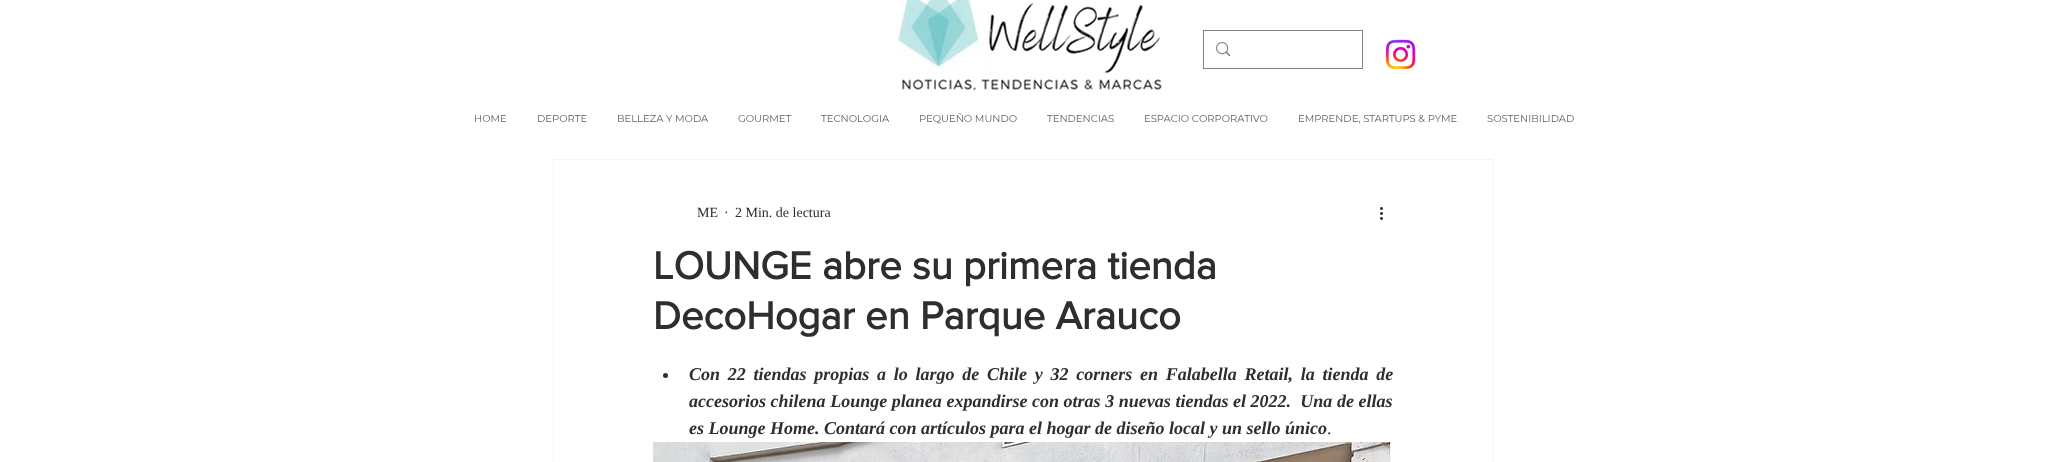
<!DOCTYPE html>
<meta charset="utf-8">
<style>body { margin: 0 } canvas { display: block }</style>
<canvas id="canvas" width="2046" height="462"></canvas>
<script type="module">
  const canvas = document.getElementById("canvas");
  const g = canvas.getContext("2d");
  g.miterLimit = 4;
  g.fontKerning = "normal";
  function drawText(s, x, y, [font, color]) {
    g.font = font;
    g.fillStyle = color;
    g.fillText(s, x, y);
  }
  function fillBox(x, y, w, h, color) {
    g.fillStyle = color;
    g.fillRect(x, y, w, h);
  }
  async function drawPicture(src, x, y, w, h) {
    const img = new Image();
    img.src = src;
    await img.decode();
    g.drawImage(img, x, y, w, h);
  }

  const s1 = ["10px Montserrat", "#605E5E"];
  const s2 = ["14px Liberation Serif", "#2F2E2E"];
  const s3 = ["bold 40px 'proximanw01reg'", "#2F2E2E"];
  const s4 = ["italic bold 18px Liberation Serif", "#2F2E2E"];
  const s5 = ["18px Liberation Serif", "#2F2E2E"];

  fillBox(0, 0, 2046, 462, "#FFFFFF");
  await drawPicture("pic1.png", 897, 0, 265, 91);
  g.strokeStyle = "#828282";
  g.strokeRect(1203.5, 30.5, 159, 38);
  await drawPicture("pic2.png", 1216, 42, 14, 15);
  await drawPicture("pic3.png", 1385, 39, 31, 31);
  drawText("HOME", 474, 122, s1);
  drawText("DEPORTE", 537, 122, s1);
  drawText("BELLEZA Y MODA", 617, 122, s1);
  drawText("GOURMET", 738, 122, s1);
  drawText("TECNOLOGIA", 821, 122, s1);
  drawText("PEQUEÑO MUNDO", 919, 122, s1);
  drawText("TENDENCIAS", 1047, 122, s1);
  drawText("ESPACIO CORPORATIVO", 1144, 122, s1);
  drawText("EMPRENDE, STARTUPS & PYME", 1298, 122, s1);
  drawText("SOSTENIBILIDAD", 1487, 122, s1);
  g.strokeStyle = "#F5F5F5";
  g.strokeRect(553.5, 159.5, 939, 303);
  drawText("ME", 697, 217, s2);
  drawText("·", 724, 217, s2);
  drawText("2 Min. de lectura", 735, 217, s2);
  await drawPicture("pic4.png", 1380, 207, 3, 13);
  drawText("LOUNGE abre su primera tienda", 653, 279, s3);
  drawText("DecoHogar en Parque Arauco", 653, 329, s3);
  g.beginPath();
  g.arc(665.5, 375.5, 2.5, 0, Math.PI * 2);
  g.fill();
  g.wordSpacing = "3.25px";
  drawText("Con 22 tiendas propias a lo largo de Chile y 32 corners en Falabella Retail, la tienda de", 689, 380, s4);
  g.wordSpacing = "0.1px";
  drawText("accesorios chilena Lounge planea expandirse con otras 3 nuevas tiendas el 2022.  Una de ellas", 689, 407, s4);
  g.wordSpacing = "0px";
  drawText("es Lounge Home. Contará con artículos para el hogar de diseño local y un sello único", 689, 434, s4);
  drawText(".", 1327, 434, s5);
  await drawPicture("pic5.png", 653, 442, 740, 20);
</script>
